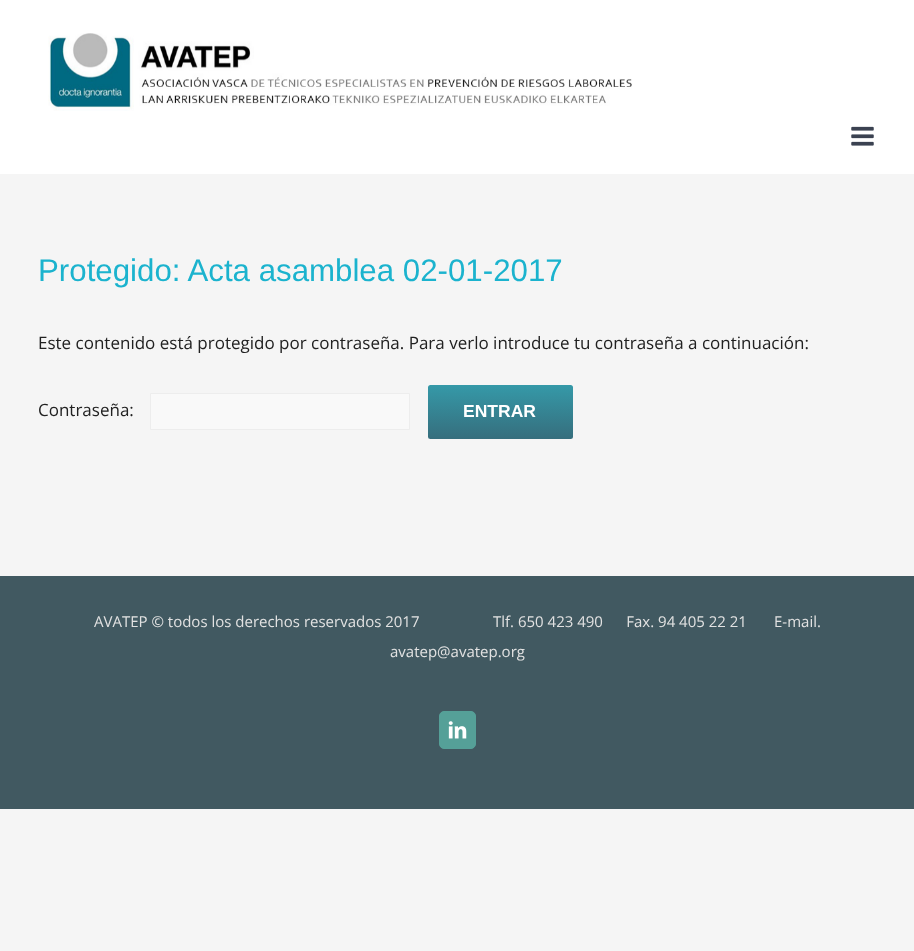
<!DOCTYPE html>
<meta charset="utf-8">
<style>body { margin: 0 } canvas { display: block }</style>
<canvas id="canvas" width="914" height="951"></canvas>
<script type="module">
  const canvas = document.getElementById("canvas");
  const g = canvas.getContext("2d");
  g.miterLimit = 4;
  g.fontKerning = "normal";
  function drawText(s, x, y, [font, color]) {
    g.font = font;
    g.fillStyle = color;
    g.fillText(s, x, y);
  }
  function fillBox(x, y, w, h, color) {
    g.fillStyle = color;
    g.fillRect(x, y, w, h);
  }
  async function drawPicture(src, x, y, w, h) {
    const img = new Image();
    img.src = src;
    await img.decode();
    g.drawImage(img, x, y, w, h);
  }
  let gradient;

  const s1 = ["31.25px Liberation Sans", "#1BB3CE"];
  const s2 = ["17px Open Sans", "#212121"];
  const s3 = ["bold 17.5px Liberation Sans", "#FFFFFF"];
  const s4 = ["15px Open Sans", "#E2E2E2"];

  fillBox(0, 0, 914, 951, "#F5F5F5");
  fillBox(0, 0, 914, 174, "#FFFFFF");
  await drawPicture("pic1.png", 48, 33, 584, 78);
  await drawPicture("pic2.png", 851, 126, 23, 20);
  drawText("Protegido: Acta asamblea 02-01-2017", 38, 281, s1);
  drawText("Este contenido está protegido por contraseña. Para verlo introduce tu contraseña a continuación:", 38, 349, s2);
  drawText("Contraseña:", 38, 416, s2);
  g.fillStyle = "#F9F9F9";
  g.beginPath();
  g.rect(150.5, 393.5, 259, 36);
  g.fill();
  g.strokeStyle = "#EDEDED";
  g.stroke();
  gradient = g.createLinearGradient(500, 439, 500, 385);
  gradient.addColorStop(0, "#366E7D");
  gradient.addColorStop(1, "#3599A8");
  g.fillStyle = gradient;
  g.beginPath();
  g.roundRect(428, 385, 145, 54, 2.5);
  g.fill();
  drawText("ENTRAR", 463, 417, s3);
  fillBox(0, 576, 914, 233, "#415961");
  drawText("AVATEP © todos los derechos reservados 2017", 94, 627, s4);
  drawText("Tlf. 650 423 490      Fax. 94 405 22 21", 493, 627, s4);
  drawText("E-mail.", 774, 627, s4);
  drawText("avatep@avatep.org", 390, 657, s4);
  g.fillStyle = "#55A098";
  g.beginPath();
  g.roundRect(439.5, 711.5, 36, 37, 4.5);
  g.fill();
  g.strokeStyle = "#55A098";
  g.stroke();
  await drawPicture("pic3.png", 448, 721, 19, 18);
</script>
